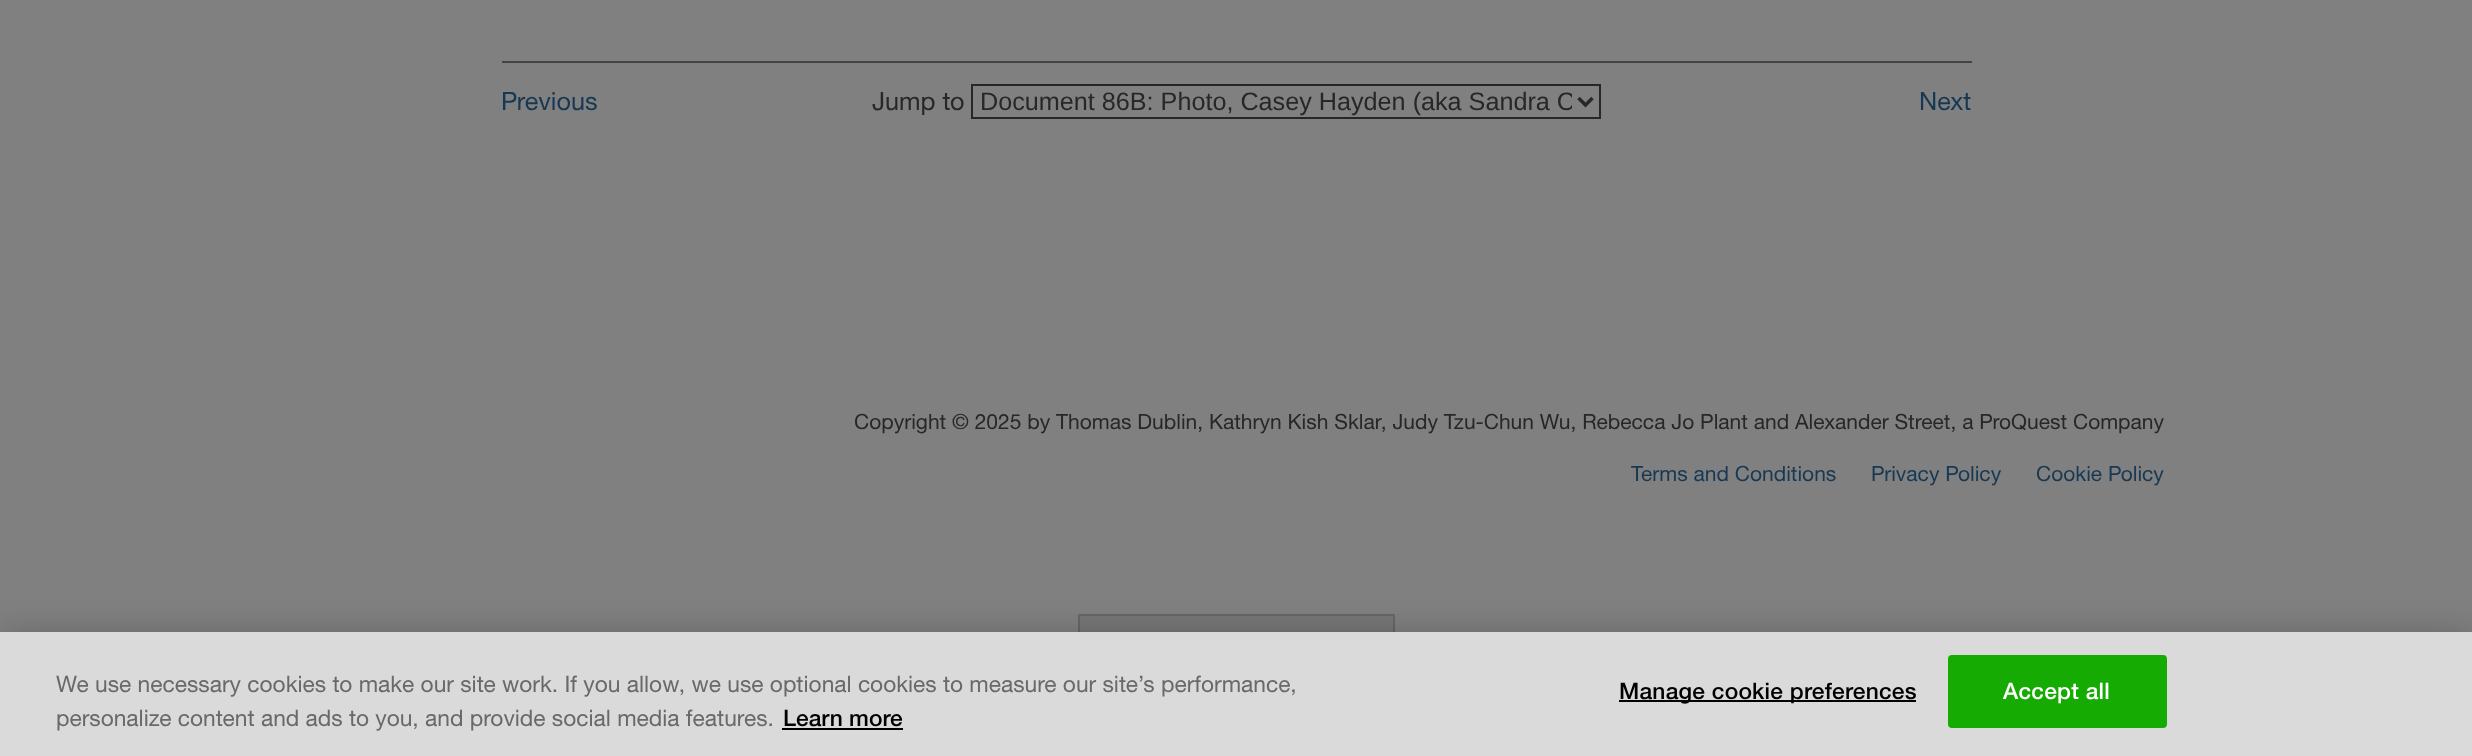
<!DOCTYPE html>
<meta charset="utf-8">
<style>body { margin: 0 } canvas { display: block }</style>
<canvas id="canvas" width="2472" height="756"></canvas>
<script type="module">
  const canvas = document.getElementById("canvas");
  const g = canvas.getContext("2d");
  g.miterLimit = 4;
  g.fontKerning = "normal";
  function drawText(s, x, y, [font, color]) {
    g.font = font;
    g.fillStyle = color;
    g.fillText(s, x, y);
  }
  function fillBox(x, y, w, h, color) {
    g.fillStyle = color;
    g.fillRect(x, y, w, h);
  }

  const s1 = ["25.2px 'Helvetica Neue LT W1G'", "#173853"];
  const s2 = ["25.2px 'Helvetica Neue LT W1G'", "#262727"];
  const s3 = ["25.2px Liberation Sans", "#262727"];
  const s4 = ["21px 'Helvetica Neue LT W1G'", "#262727"];
  const s5 = ["21px 'Helvetica Neue LT W1G'", "#173853"];
  const s6 = ["22.75px 'Helvetica Neue LT W1G'", "#696969"];
  const s7 = ["500 22.75px Helvetica Neue", "#000000"];
  const s8 = ["500 22.75px Helvetica Neue", "#FFFFFF"];

  fillBox(0, 0, 2472, 756, "#808080");
  fillBox(502, 61, 1470, 2, "#444444");
  drawText("Previous", 501, 110, s1);
  drawText("Jump to", 872, 110, s2);
  g.strokeStyle = "#262727";
  g.lineWidth = 2;
  g.strokeRect(972, 85, 628, 33);
  g.beginPath();
  g.moveTo(1578.5, 98);
  g.lineTo(1585.5, 105);
  g.lineTo(1592.5, 98);
  g.lineWidth = 3.5;
  g.stroke();
  g.save();
  g.beginPath();
  g.rect(980, 86, 592, 31);
  g.clip();
  drawText("Document 86B: Photo, Casey Hayden (aka Sandra C", 980, 110, s3);
  g.restore();
  drawText("Next", 1919, 110, s1);
  drawText("Copyright © 2025 by Thomas Dublin, Kathryn Kish Sklar, Judy Tzu-Chun Wu, Rebecca Jo Plant and Alexander Street, a ProQuest Company", 854, 429, s4);
  drawText("Terms and Conditions", 1631, 481, s5);
  drawText("Privacy Policy", 1871, 481, s5);
  drawText("Cookie Policy", 2036, 481, s5);
  fillBox(1080, 616, 313, 16, "#777777");
  g.strokeStyle = "#666666";
  g.lineWidth = 2;
  g.strokeRect(1079, 615, 315, 56);
  g.fillStyle = "rgba(0, 0, 0, 0.2)";
  g.filter = "blur(16px)";
  g.beginPath();
  g.rect(0, 632, 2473, 124);
  g.fill();
  g.filter = "none";
  fillBox(0, 632, 2472, 124, "#DADADA");
  drawText("We use necessary cookies to make our site work. If you allow, we use optional cookies to measure our site’s performance,", 56, 692, s6);
  drawText("personalize content and ads to you, and provide social media features.", 56, 726, s6);
  drawText("Learn more", 783, 726, s7);
  fillBox(782, 728, 121, 2, "#000000");
  fillBox(1619, 700, 297, 2, "#000000");
  g.letterSpacing = "0.25px";
  drawText("Manage cookie preferences", 1619, 699, s7);
  g.fillStyle = "#16AB03";
  g.beginPath();
  g.roundRect(1949, 656, 217, 71, 3);
  g.fill();
  g.strokeStyle = "#16AB03";
  g.stroke();
  drawText("Accept all", 2003, 699, s8);
</script>
